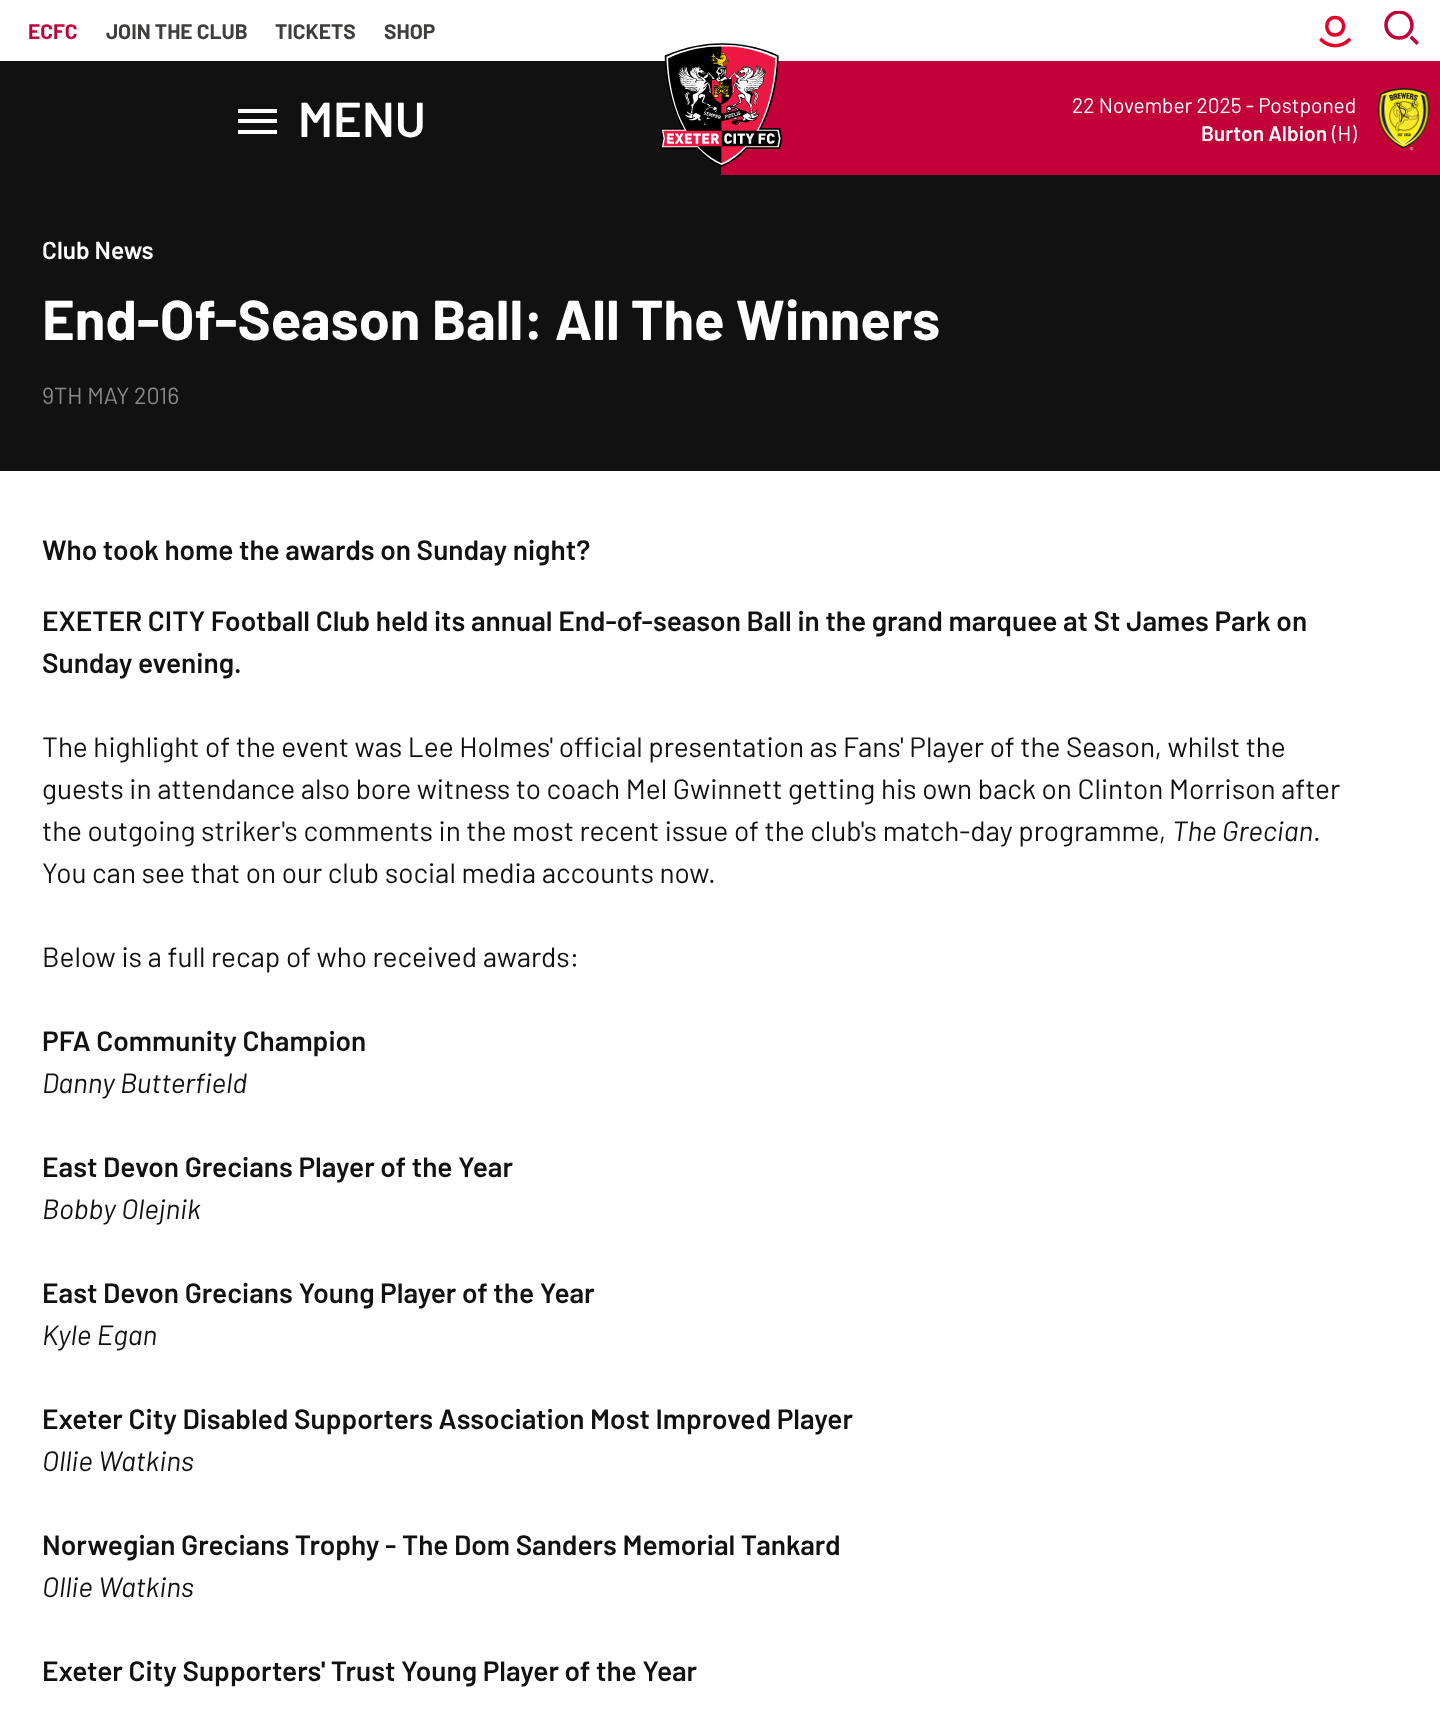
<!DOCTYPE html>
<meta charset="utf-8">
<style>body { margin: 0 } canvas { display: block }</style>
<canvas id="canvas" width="1440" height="1717"></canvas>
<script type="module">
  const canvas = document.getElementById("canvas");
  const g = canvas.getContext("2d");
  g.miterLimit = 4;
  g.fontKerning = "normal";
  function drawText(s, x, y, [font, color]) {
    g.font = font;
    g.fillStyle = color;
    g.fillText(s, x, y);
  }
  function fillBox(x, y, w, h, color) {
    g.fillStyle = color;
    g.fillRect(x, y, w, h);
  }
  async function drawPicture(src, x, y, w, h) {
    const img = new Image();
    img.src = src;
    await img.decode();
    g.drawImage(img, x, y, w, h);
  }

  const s1 = ["bold 21px Barlow", "#C30139"];
  const s2 = ["bold 21px Barlow", "#3E3E3D"];
  const s3 = ["600 49px Barlow", "#FFFFFF"];
  const s4 = ["21px Barlow", "#FFFFFF"];
  const s5 = ["600 21px Barlow", "#FFFFFF"];
  const s6 = ["600 24.5px Barlow", "#FFFFFF"];
  const s7 = ["bold 56px Barlow", "#FFFFFF"];
  const s8 = ["23.25px Barlow", "#888888"];
  const s9 = ["600 28px Barlow", "#111111"];
  const s10 = ["28px Barlow", "#111111"];
  const s11 = ["italic 28px Barlow", "#111111"];

  fillBox(0, 0, 1440, 1717, "#FFFFFF");
  drawText("ECFC", 28, 39, s1);
  drawText("JOIN THE CLUB", 106, 39, s2);
  drawText("TICKETS", 275, 39, s2);
  drawText("SHOP", 384, 39, s2);
  g.beginPath();
  g.moveTo(1335, 17.5);
  g.bezierCurveTo(1324, 17.5, 1324, 35, 1335, 35);
  g.bezierCurveTo(1346.5, 35, 1346.5, 17.5, 1335, 17.5);
  g.closePath();
  g.strokeStyle = "#E4002B";
  g.lineWidth = 3.5;
  g.stroke();
  g.beginPath();
  g.moveTo(1349, 40);
  g.bezierCurveTo(1341.5, 47.5, 1329, 47.5, 1321.5, 40);
  g.lineCap = "square";
  g.stroke();
  g.save();
  g.beginPath();
  g.rect(1384, 11, 42, 42);
  g.clip();
  g.beginPath();
  g.arc(1399, 25, 13, 0, Math.PI * 2);
  g.strokeStyle = "#C30139";
  g.stroke();
  g.restore();
  g.beginPath();
  g.moveTo(1416.5, 42.5);
  g.lineTo(1412, 38);
  g.strokeStyle = "#C30139";
  g.stroke();
  fillBox(0, 61, 721, 114, "#111111");
  fillBox(721, 61, 719, 114, "#C30139");
  await drawPicture("pic1.png", 660, 43, 123, 124);
  fillBox(238, 119, 39, 4, "#FFFFFF");
  fillBox(238, 109, 39, 4, "#FFFFFF");
  fillBox(238, 130, 39, 4, "#FFFFFF");
  drawText("MENU", 298, 137, s3);
  drawText("22 November 2025 - Postponed", 1072, 113, s4);
  await drawPicture("pic2.png", 1377, 87, 53, 64);
  drawText("Burton Albion", 1201, 141, s5);
  drawText("(H)", 1332, 141, s4);
  fillBox(0, 175, 1440, 296, "#111111");
  drawText("Club News", 42, 259, s6);
  drawText("End-Of-Season Ball: All The Winners", 42, 340, s7);
  drawText("9TH MAY 2016", 42, 404, s8);
  drawText("Who took home the awards on Sunday night?", 42, 560, s9);
  drawText("EXETER CITY Football Club held its annual End-of-season Ball in the grand marquee at St James Park on", 42, 631, s9);
  drawText("Sunday evening.", 42, 673, s9);
  drawText("The highlight of the event was Lee Holmes' official presentation as Fans' Player of the Season, whilst the", 42, 757, s10);
  drawText("guests in attendance also bore witness to coach Mel Gwinnett getting his own back on Clinton Morrison after", 42, 799, s10);
  drawText("the outgoing striker's comments in the most recent issue of the club's match-day programme,", 42, 841, s10);
  drawText("The Grecian", 1172, 841, s11);
  drawText(".", 1313, 841, s10);
  drawText("You can see that on our club social media accounts now.", 42, 883, s10);
  drawText("Below is a full recap of who received awards:", 42, 967, s10);
  drawText("PFA Community Champion", 42, 1051, s9);
  drawText("Danny Butterfield", 42, 1093, s11);
  drawText("East Devon Grecians Player of the Year", 42, 1177, s9);
  drawText("Bobby Olejnik", 42, 1219, s11);
  drawText("East Devon Grecians Young Player of the Year", 42, 1303, s9);
  drawText("Kyle Egan", 42, 1345, s11);
  drawText("Exeter City Disabled Supporters Association Most Improved Player", 42, 1429, s9);
  drawText("Ollie Watkins", 42, 1471, s11);
  drawText("Norwegian Grecians Trophy - The Dom Sanders Memorial Tankard", 42, 1555, s9);
  drawText("Ollie Watkins", 42, 1597, s11);
  drawText("Exeter City Supporters' Trust Young Player of the Year", 42, 1681, s9);
</script>
